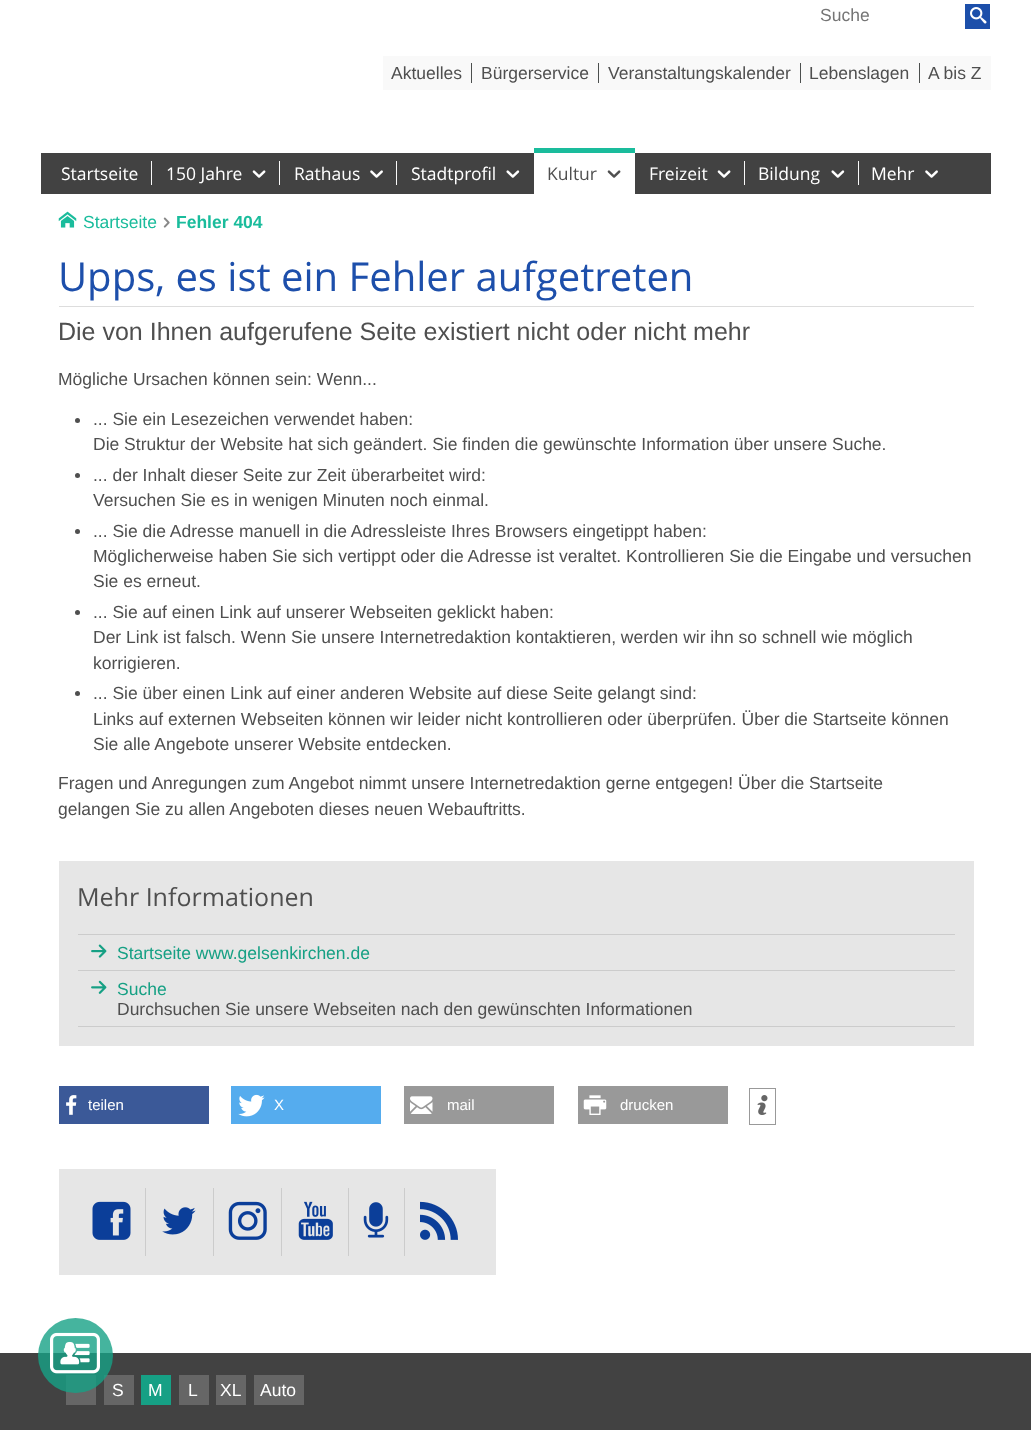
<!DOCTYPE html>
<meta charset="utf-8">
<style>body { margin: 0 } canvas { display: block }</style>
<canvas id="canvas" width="1031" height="1430"></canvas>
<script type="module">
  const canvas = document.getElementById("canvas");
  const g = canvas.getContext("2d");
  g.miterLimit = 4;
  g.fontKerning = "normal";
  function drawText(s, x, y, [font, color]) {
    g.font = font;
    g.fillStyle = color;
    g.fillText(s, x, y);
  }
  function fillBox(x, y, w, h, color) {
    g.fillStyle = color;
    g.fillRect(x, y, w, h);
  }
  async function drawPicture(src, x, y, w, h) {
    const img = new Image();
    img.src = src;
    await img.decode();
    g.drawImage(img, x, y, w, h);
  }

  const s1 = ["17.5px Liberation Sans", "#757575"];
  const s2 = ["17.5px Liberation Sans", "#4F4F4F"];
  const s3 = ["17.5px Open Sans", "#FFFFFF"];
  const s4 = ["17.5px Open Sans", "#4F4F4F"];
  const s5 = ["17.5px Liberation Sans", "#1ABC9C"];
  const s6 = ["bold 17.5px Liberation Sans", "#1ABC9C"];
  const s7 = ["40px Open Sans", "#1D4FAB"];
  const s8 = ["25px Liberation Sans", "#4F4F4F"];
  const s9 = ["25px Open Sans", "#4F4F4F"];
  const s10 = ["17.5px Liberation Sans", "#16A084"];
  const s11 = ["15px Liberation Sans", "#FFFFFF"];
  const s12 = ["17.5px Liberation Sans", "#FFFFFF"];

  fillBox(0, 0, 1031, 1430, "#FFFFFF");
  drawText("Suche", 820, 21, s1);
  fillBox(965, 4, 25, 25, "#1C4FAA");
  await drawPicture("pic1.png", 970, 7, 17, 17);
  fillBox(383, 56, 608, 34, "#F9F9F9");
  drawText("Aktuelles", 391, 79, s2);
  drawText("Bürgerservice", 481, 79, s2);
  fillBox(471, 63, 1, 20, "#4C4F4E");
  drawText("Veranstaltungskalender", 608, 79, s2);
  fillBox(598, 63, 1, 20, "#4C4F4E");
  drawText("Lebenslagen", 809, 79, s2);
  fillBox(800, 63, 1, 20, "#4C4F4E");
  drawText("A bis Z", 928, 79, s2);
  fillBox(919, 63, 1, 20, "#4C4F4E");
  fillBox(41, 153, 950, 41, "#424242");
  fillBox(151, 161, 1, 24, "#F9F9F9");
  drawText("Startseite", 61, 180, s3);
  fillBox(279, 161, 1, 24, "#F9F9F9");
  drawText("150 Jahre", 166, 180, s3);
  await drawPicture("pic2.png", 252, 170, 14, 8);
  fillBox(396, 161, 1, 24, "#F9F9F9");
  drawText("Rathaus", 294, 180, s3);
  await drawPicture("pic3.png", 370, 170, 13, 8);
  drawText("Stadtprofil", 411, 180, s3);
  await drawPicture("pic4.png", 506, 170, 14, 8);
  fillBox(534, 148, 101, 5, "#1ABC9C");
  fillBox(534, 153, 101, 41, "#FFFFFF");
  drawText("Kultur", 547, 180, s4);
  await drawPicture("pic5.png", 607, 170, 14, 8);
  fillBox(744, 161, 1, 24, "#F9F9F9");
  drawText("Freizeit", 649, 180, s3);
  await drawPicture("pic2.png", 717, 170, 14, 8);
  fillBox(858, 161, 1, 24, "#F9F9F9");
  drawText("Bildung", 758, 180, s3);
  await drawPicture("pic4.png", 831, 170, 14, 8);
  drawText("Mehr", 871, 180, s3);
  await drawPicture("pic3.png", 925, 170, 13, 8);
  await drawPicture("pic6.png", 58, 211, 19, 17);
  drawText("Startseite", 83, 228, s5);
  await drawPicture("pic7.png", 163, 217, 7, 11);
  drawText("Fehler 404", 176, 228, s6);
  fillBox(59, 306, 915, 1, "#DDDDDD");
  drawText("Upps, es ist ein Fehler aufgetreten", 58, 291, s7);
  drawText("Die von Ihnen aufgerufene Seite existiert nicht oder nicht mehr", 58, 340, s8);
  drawText("Mögliche Ursachen können sein: Wenn...", 58, 385, s2);
  g.beginPath();
  g.arc(77.5, 420.5, 2.5, 0, Math.PI * 2);
  g.fill();
  drawText("... Sie ein Lesezeichen verwendet haben:", 93, 425, s2);
  drawText("Die Struktur der Website hat sich geändert. Sie finden die gewünschte Information über unsere Suche.", 93, 450, s2);
  g.beginPath();
  g.arc(77.5, 475.5, 2.5, 0, Math.PI * 2);
  g.fill();
  drawText("... der Inhalt dieser Seite zur Zeit überarbeitet wird:", 93, 481, s2);
  drawText("Versuchen Sie es in wenigen Minuten noch einmal.", 93, 506, s2);
  g.beginPath();
  g.arc(77.5, 531.5, 2.5, 0, Math.PI * 2);
  g.fill();
  drawText("... Sie die Adresse manuell in die Adressleiste Ihres Browsers eingetippt haben:", 93, 537, s2);
  drawText("Möglicherweise haben Sie sich vertippt oder die Adresse ist veraltet. Kontrollieren Sie die Eingabe und versuchen", 93, 562, s2);
  drawText("Sie es erneut.", 93, 587, s2);
  g.beginPath();
  g.arc(77.5, 612.5, 2.5, 0, Math.PI * 2);
  g.fill();
  drawText("... Sie auf einen Link auf unserer Webseiten geklickt haben:", 93, 618, s2);
  drawText("Der Link ist falsch. Wenn Sie unsere Internetredaktion kontaktieren, werden wir ihn so schnell wie möglich", 93, 643, s2);
  drawText("korrigieren.", 93, 669, s2);
  g.beginPath();
  g.arc(77.5, 693.5, 2.5, 0, Math.PI * 2);
  g.fill();
  drawText("... Sie über einen Link auf einer anderen Website auf diese Seite gelangt sind:", 93, 699, s2);
  drawText("Links auf externen Webseiten können wir leider nicht kontrollieren oder überprüfen. Über die Startseite können", 93, 725, s2);
  drawText("Sie alle Angebote unserer Website entdecken.", 93, 750, s2);
  drawText("Fragen und Anregungen zum Angebot nimmt unsere Internetredaktion gerne entgegen! Über die Startseite", 58, 789, s2);
  drawText("gelangen Sie zu allen Angeboten dieses neuen Webauftritts.", 58, 815, s2);
  fillBox(59, 861, 915, 185, "#E6E6E6");
  drawText("Mehr Informationen", 77, 906, s9);
  fillBox(78, 1026, 877, 1, "#CCCCCC");
  fillBox(78, 934, 877, 1, "#CCCCCC");
  await drawPicture("pic8.png", 91, 944, 16, 14);
  drawText("Startseite www.gelsenkirchen.de", 117, 959, s10);
  fillBox(78, 970, 877, 1, "#CCCCCC");
  await drawPicture("pic9.png", 91, 980, 16, 14);
  drawText("Suche", 117, 995, s10);
  drawText("Durchsuchen Sie unsere Webseiten nach den gewünschten Informationen", 117, 1015, s2);
  fillBox(59, 1086, 150, 38, "#3B5998");
  await drawPicture("pic10.png", 66, 1095, 11, 20);
  drawText("teilen", 88, 1110, s11);
  fillBox(231, 1086, 150, 38, "#55ACEE");
  await drawPicture("pic11.png", 238, 1094, 27, 23);
  drawText("X", 274, 1110, s11);
  fillBox(404, 1086, 150, 38, "#999999");
  await drawPicture("pic12.png", 410, 1096, 23, 18);
  drawText("mail", 447, 1110, s11);
  fillBox(578, 1086, 150, 38, "#999999");
  await drawPicture("pic13.png", 583, 1095, 24, 20);
  drawText("drucken", 620, 1110, s11);
  g.strokeStyle = "#999999";
  g.strokeRect(749.5, 1088.5, 26, 36);
  await drawPicture("pic14.png", 757, 1095, 11, 20);
  fillBox(59, 1169, 437, 106, "#E6E6E6");
  await drawPicture("pic15.png", 92, 1201, 39, 39);
  fillBox(145, 1188, 1, 68, "#CCCCCC");
  await drawPicture("pic16.png", 162, 1207, 34, 28);
  fillBox(213, 1188, 1, 68, "#CCCCCC");
  await drawPicture("pic17.png", 228, 1201, 39, 39);
  fillBox(281, 1188, 1, 68, "#CCCCCC");
  await drawPicture("pic18.png", 298, 1201, 35, 39);
  fillBox(348, 1188, 1, 68, "#CCCCCC");
  await drawPicture("pic19.png", 363, 1202, 26, 36);
  fillBox(404, 1188, 1, 68, "#CCCCCC");
  await drawPicture("pic20.png", 420, 1201, 38, 39);
  fillBox(0, 1353, 1031, 77, "#424242");
  fillBox(66, 1375, 30, 30, "#666666");
  fillBox(104, 1375, 30, 30, "#666666");
  g.fillStyle = "rgba(22, 161, 134, 0.8)";
  g.beginPath();
  g.arc(75.5, 1355.5, 37.5, 0, Math.PI * 2);
  g.fill();
  await drawPicture("pic21.png", 50, 1332, 50, 42);
  drawText("S", 112, 1396, s12);
  fillBox(141, 1375, 30, 30, "#16A085");
  drawText("M", 148, 1396, s12);
  fillBox(179, 1375, 30, 30, "#666666");
  drawText("L", 188, 1396, s12);
  fillBox(216, 1375, 30, 30, "#666666");
  drawText("XL", 220, 1396, s12);
  fillBox(254, 1375, 50, 30, "#666666");
  drawText("Auto", 260, 1396, s12);
</script>
